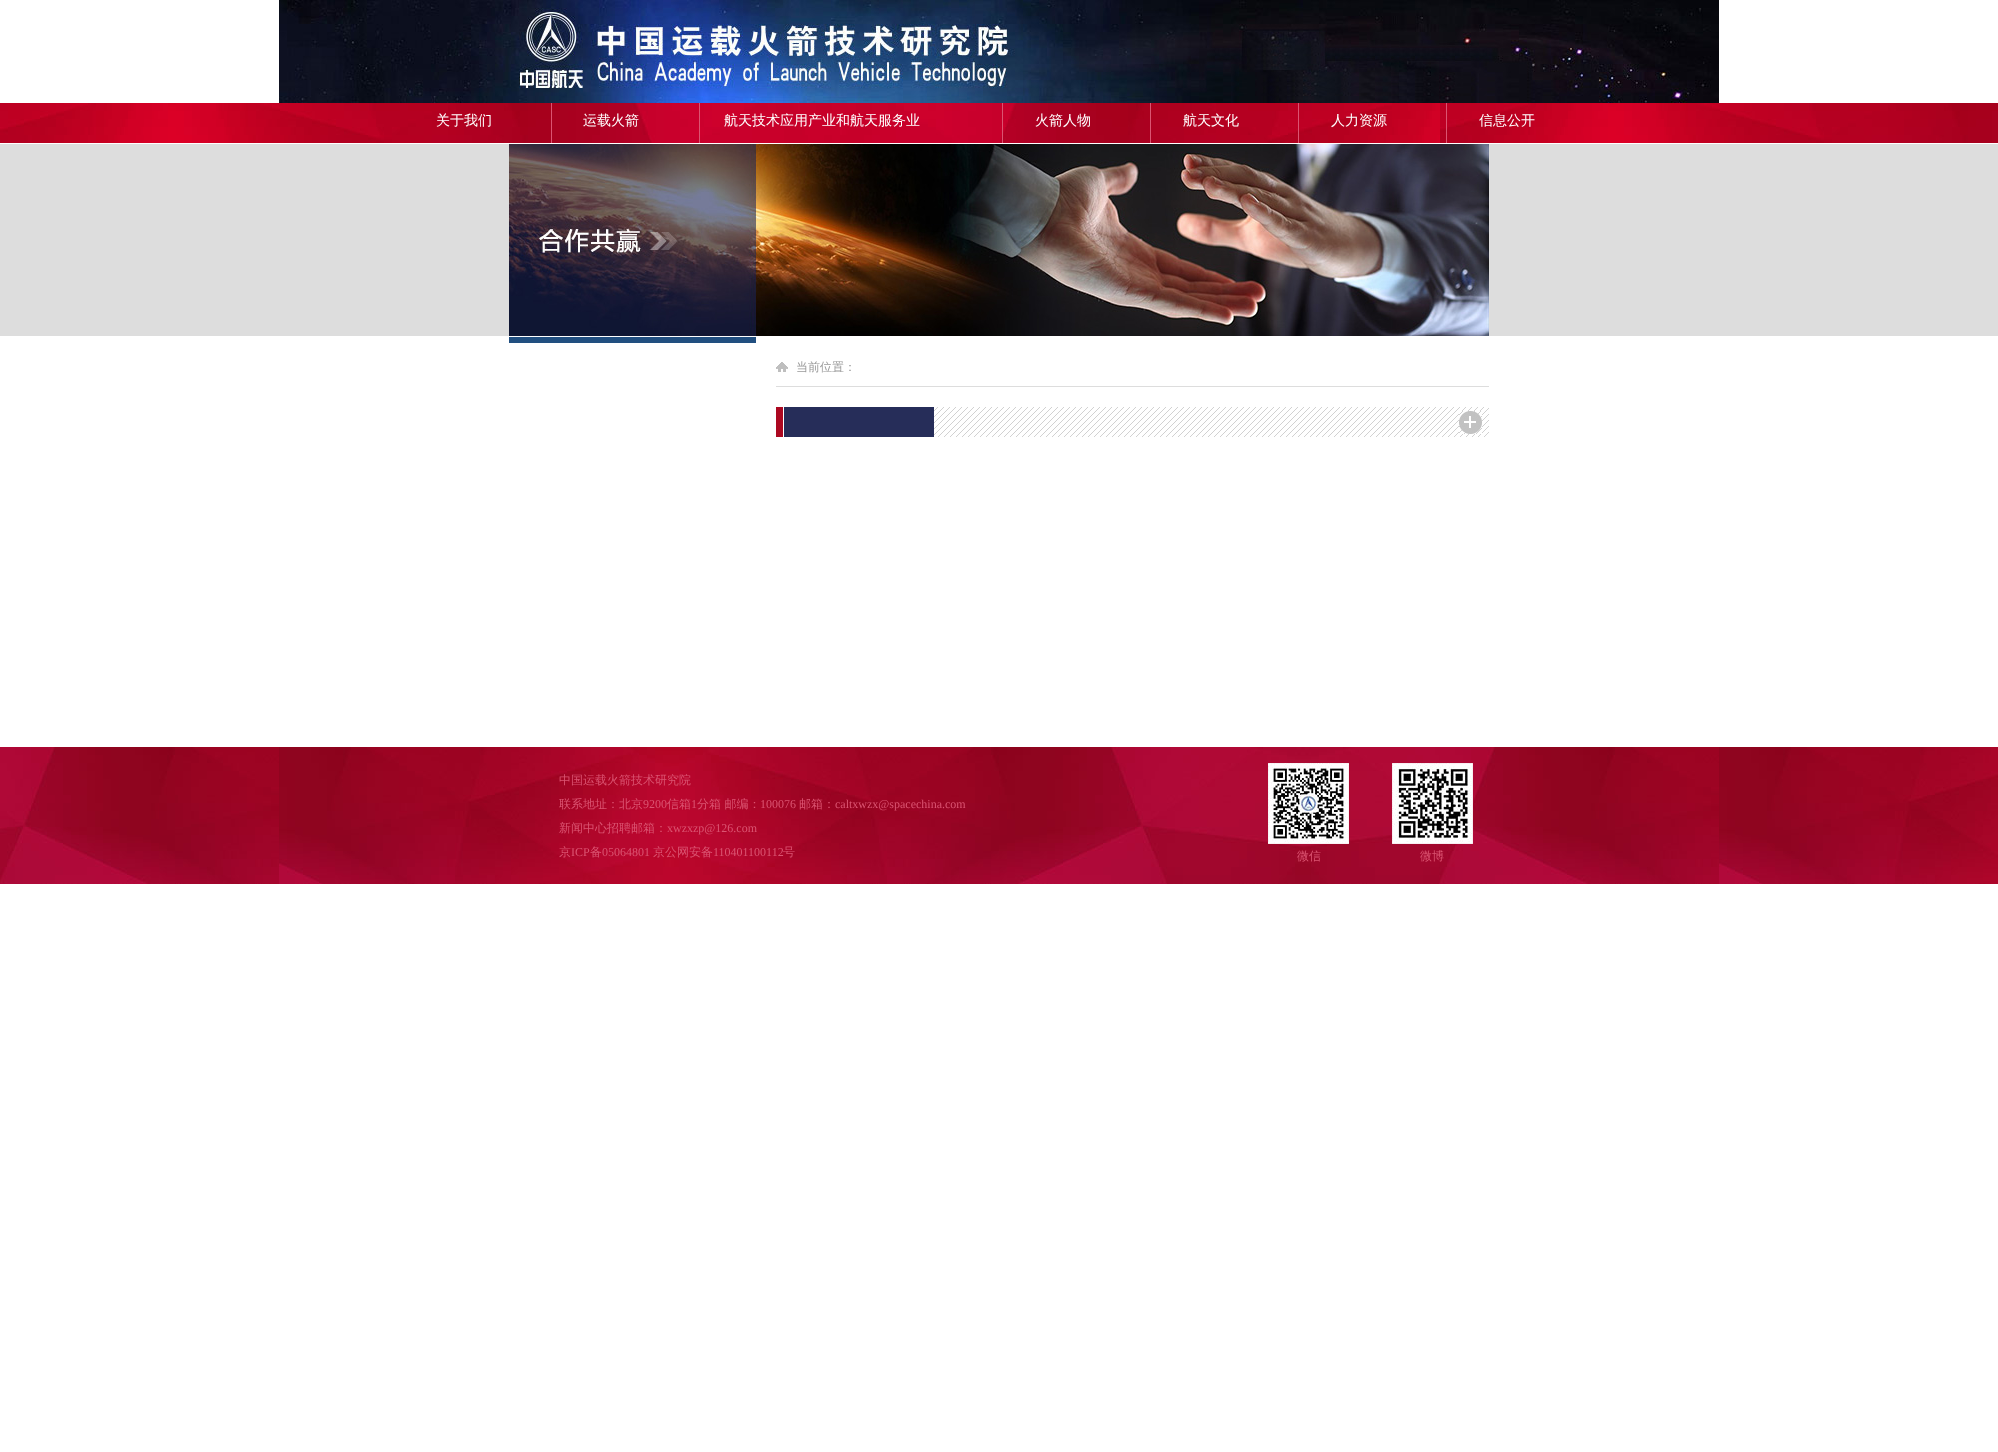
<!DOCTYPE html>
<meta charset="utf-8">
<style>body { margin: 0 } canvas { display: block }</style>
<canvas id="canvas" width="1998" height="1452"></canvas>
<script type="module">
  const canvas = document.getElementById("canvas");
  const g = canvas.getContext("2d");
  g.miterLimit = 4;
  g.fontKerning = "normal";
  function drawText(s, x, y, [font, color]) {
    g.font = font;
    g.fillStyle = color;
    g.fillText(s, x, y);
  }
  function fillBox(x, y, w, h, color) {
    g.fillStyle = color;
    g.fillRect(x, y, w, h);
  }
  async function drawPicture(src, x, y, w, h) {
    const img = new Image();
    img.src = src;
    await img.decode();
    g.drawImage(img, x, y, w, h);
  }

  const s1 = ["500 14px WenQuanYi Zen Hei", "#FFFFFF"];
  const s2 = ["500 12px WenQuanYi Zen Hei", "#999999"];
  const s3 = ["500 12px WenQuanYi Zen Hei", "#DB5471"];
  const s4 = ["12px Liberation Serif", "#DB5471"];

  fillBox(0, 0, 1998, 1452, "#FFFFFF");
  await drawPicture("pic1.png", 279, 0, 1440, 103);
  await drawPicture("pic2.png", 0, 103, 1998, 40);
  fillBox(551, 103, 1, 40, "#DB5471");
  drawText("关于我们", 436, 125, s1);
  fillBox(699, 103, 1, 40, "#DB5471");
  drawText("运载火箭", 583, 125, s1);
  fillBox(1002, 103, 1, 40, "#DB5471");
  drawText("航天技术应用产业和航天服务业", 724, 125, s1);
  fillBox(1150, 103, 1, 40, "#DB5471");
  drawText("火箭人物", 1035, 125, s1);
  fillBox(1298, 103, 1, 40, "#DB5471");
  drawText("航天文化", 1183, 125, s1);
  fillBox(1446, 103, 1, 40, "#DB5471");
  drawText("人力资源", 1331, 125, s1);
  drawText("信息公开", 1479, 125, s1);
  fillBox(0, 144, 1998, 192, "#DDDDDD");
  await drawPicture("pic3.png", 509, 144, 980, 192);
  fillBox(509, 337, 247, 6, "#214F80");
  fillBox(776, 386, 713, 1, "#DDDDDD");
  await drawPicture("pic4.png", 776, 362, 12, 10);
  drawText("当前位置：", 796, 371, s2);
  await drawPicture("pic5.png", 934, 407, 555, 30);
  fillBox(776, 407, 7, 30, "#AC0821");
  fillBox(784, 407, 150, 30, "#262D59");
  await drawPicture("pic6.png", 1459, 411, 23, 23);
  await drawPicture("pic7.png", 0, 747, 1998, 137);
  drawText("中国运载火箭技术研究院", 559, 784, s3);
  drawText("联系地址：北京", 559, 808, s3);
  drawText("9200", 643, 808, s4);
  drawText("信箱", 667, 808, s3);
  drawText("1", 691, 808, s4);
  drawText("分箱 邮编：", 697, 808, s3);
  drawText("100076", 760, 808, s4);
  drawText("邮箱：", 799, 808, s3);
  drawText("caltxwzx@spacechina.com", 835, 808, s4);
  drawText("新闻中心招聘邮箱：", 559, 832, s3);
  drawText("xwzxzp@126.com", 667, 832, s4);
  drawText("京", 559, 856, s3);
  drawText("ICP", 571, 856, s4);
  drawText("备", 590, 856, s3);
  drawText("05064801", 602, 856, s4);
  drawText("京公网安备", 653, 856, s3);
  drawText("110401100112", 713, 856, s4);
  drawText("号", 783, 856, s3);
  await drawPicture("pic8.png", 1268, 763, 81, 81);
  drawText("微信", 1297, 860, s3);
  await drawPicture("pic9.png", 1392, 763, 81, 81);
  drawText("微博", 1420, 860, s3);
</script>
